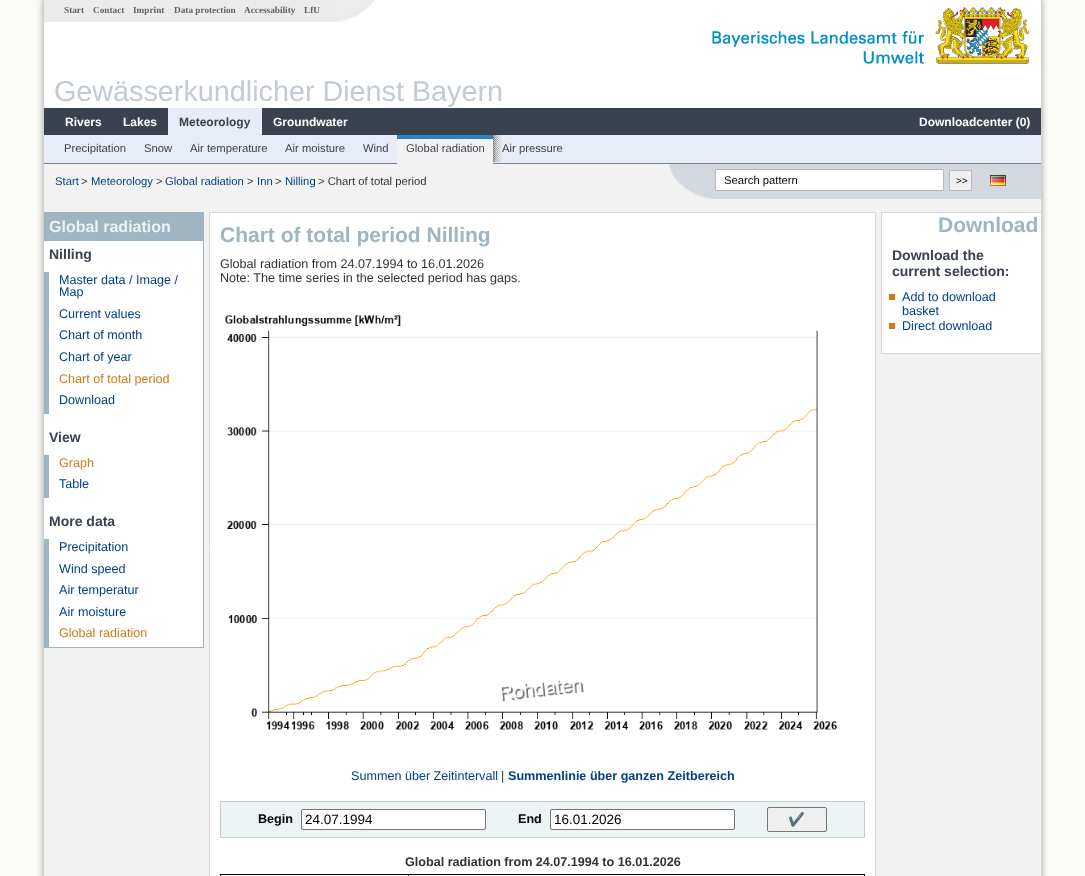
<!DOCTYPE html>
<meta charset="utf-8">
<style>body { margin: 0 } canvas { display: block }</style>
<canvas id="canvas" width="1085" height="876"></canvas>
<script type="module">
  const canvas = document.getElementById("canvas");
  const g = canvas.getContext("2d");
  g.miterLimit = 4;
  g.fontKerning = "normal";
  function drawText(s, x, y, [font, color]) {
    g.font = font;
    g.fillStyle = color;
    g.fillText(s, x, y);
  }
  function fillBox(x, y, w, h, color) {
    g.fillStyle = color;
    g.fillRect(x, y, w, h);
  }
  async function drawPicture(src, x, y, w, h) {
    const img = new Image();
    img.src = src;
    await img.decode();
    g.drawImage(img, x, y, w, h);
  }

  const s1 = ["bold 9.25px Liberation Serif", "#636363"];
  const s2 = ["28.75px Liberation Sans", "#C3CAD4"];
  const s3 = ["bold 12px Liberation Sans", "#FFFFFF"];
  const s4 = ["bold 12px Liberation Sans", "#3B424F"];
  const s5 = ["11.25px Liberation Sans", "#3B424F"];
  const s6 = ["11.25px Liberation Sans", "#004185"];
  const s7 = ["11.25px Liberation Sans", "#333333"];
  const s8 = ["11.25px Liberation Sans", "#000000"];
  const s9 = ["10px Liberation Sans", "#000000"];
  const s10 = ["bold 16px Liberation Sans", "#EDF1F3"];
  const s11 = ["bold 14px Liberation Sans", "#3B424F"];
  const s12 = ["12.6px Liberation Sans", "#004185"];
  const s13 = ["12.6px Liberation Sans", "#CC7B17"];
  const s14 = ["bold 21px Liberation Sans", "#9FB5C1"];
  const s15 = ["12.6px Liberation Sans", "#333333"];
  const s16 = ["bold 12.6px Liberation Sans", "#004185"];
  const s17 = ["bold 12.6px Liberation Sans", "#000000"];
  const s18 = ["13.5px Liberation Sans", "#000000"];
  const s19 = ["13.5px Noto Color Emoji", "#000000"];
  const s20 = ["bold 12.6px Liberation Sans", "#333333"];

  fillBox(0, 0, 1085, 876, "#FBFBF8");
  g.fillStyle = "rgba(0, 0, 0, 0.35)";
  g.filter = "blur(3px)";
  g.beginPath();
  g.rect(43, 0, 999, 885);
  g.fill();
  g.filter = "none";
  fillBox(44, 0, 997, 108, "#FFFFFF");
  fillBox(1041, 0, 1, 876, "#CECFD4");
  fillBox(43, 0, 1, 876, "#CECFD4");
  fillBox(44, 0, 291, 22, "#EBEBEB");
  await drawPicture("pic1.png", 335, 0, 40, 22);
  drawText("Start", 64, 13, s1);
  drawText("Contact", 93, 13, s1);
  drawText("Imprint", 133, 13, s1);
  drawText("Data protection", 174, 13, s1);
  drawText("Accessability", 244, 13, s1);
  drawText("LfU", 304, 13, s1);
  await drawPicture("pic2.png", 712, 7, 317, 57);
  drawText("Gewässerkundlicher Dienst Bayern", 54, 101, s2);
  fillBox(44, 108, 997, 27, "#3B424F");
  drawText("Rivers", 65, 126, s3);
  drawText("Lakes", 123, 126, s3);
  fillBox(168, 108, 94, 27, "#E7ECF7");
  drawText("Meteorology", 179, 126, s4);
  drawText("Groundwater", 273, 126, s3);
  drawText("Downloadcenter (0)", 919, 126, s3);
  fillBox(44, 135, 997, 28, "#E7ECF7");
  fillBox(44, 163, 997, 1, "#7A8291");
  drawText("Precipitation", 64, 152, s5);
  drawText("Snow", 144, 152, s5);
  drawText("Air temperature", 190, 152, s5);
  drawText("Air moisture", 285, 152, s5);
  drawText("Wind", 363, 152, s5);
  fillBox(397, 139, 96, 25, "#F2F2F2");
  fillBox(397, 135, 96, 4, "#2484C6");
  drawText("Global radiation", 406, 152, s5);
  await drawPicture("pic3.png", 493, 135, 9, 27);
  drawText("Air pressure", 502, 152, s5);
  fillBox(44, 164, 997, 712, "#F2F2F2");
  drawText("Start", 55, 185, s6);
  drawText(">", 81, 185, s7);
  drawText("Meteorology", 91, 185, s6);
  drawText(">", 156, 185, s7);
  drawText("Global radiation", 165, 185, s6);
  drawText(">", 247, 185, s7);
  drawText("Inn", 257, 185, s6);
  drawText(">", 275, 185, s7);
  drawText("Nilling", 285, 185, s6);
  drawText("> Chart of total period", 318, 185, s7);
  fillBox(713, 164, 328, 35, "#D3D8DF");
  await drawPicture("pic4.png", 669, 164, 44, 35);
  g.fillStyle = "#FFFFFF";
  g.beginPath();
  g.rect(715.5, 169.5, 228, 21);
  g.fill();
  g.strokeStyle = "#B8B8B8";
  g.stroke();
  drawText("Search pattern", 724, 184, s8);
  g.fillStyle = "#EFEFEF";
  g.beginPath();
  g.rect(949.5, 170.5, 22, 20);
  g.fill();
  g.stroke();
  drawText(">>", 956, 184, s9);
  await drawPicture("pic5.png", 990, 175, 16, 11);
  fillBox(44, 241, 159, 406, "#FFFFFF");
  fillBox(44, 212, 160, 1, "#9FB5C1");
  fillBox(203, 212, 1, 436, "#9FB5C1");
  fillBox(44, 647, 160, 1, "#9FB5C1");
  fillBox(44, 213, 159, 28, "#9FB5C1");
  drawText("Global radiation", 49, 232, s10);
  drawText("Nilling", 49, 259, s11);
  fillBox(44, 272, 5, 142, "#9FB5C1");
  drawText("Master data / Image /", 59, 284, s12);
  drawText("Map", 59, 296, s12);
  drawText("Current values", 59, 318, s12);
  drawText("Chart of month", 59, 339, s12);
  drawText("Chart of year", 59, 361, s12);
  drawText("Chart of total period", 59, 383, s13);
  drawText("Download", 59, 404, s12);
  drawText("View", 49, 442, s11);
  fillBox(44, 455, 5, 43, "#9FB5C1");
  drawText("Graph", 59, 467, s13);
  drawText("Table", 59, 488, s12);
  drawText("More data", 49, 526, s11);
  fillBox(44, 539, 5, 108, "#9FB5C1");
  drawText("Precipitation", 59, 551, s12);
  drawText("Wind speed", 59, 573, s12);
  drawText("Air temperatur", 59, 594, s12);
  drawText("Air moisture", 59, 616, s12);
  drawText("Global radiation", 59, 637, s13);
  g.fillStyle = "#FFFFFF";
  g.beginPath();
  g.rect(209.5, 212.5, 666, 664);
  g.fill();
  g.strokeStyle = "#D7D7D7";
  g.stroke();
  drawText("Chart of total period Nilling", 220, 242, s14);
  drawText("Global radiation from 24.07.1994 to 16.01.2026", 220, 268, s15);
  drawText("Note: The time series in the selected period has gaps.", 220, 282, s15);
  await drawPicture("pic6.png", 224, 315, 613, 415);
  drawText("Summen über Zeitintervall", 351, 780, s12);
  drawText("|", 501, 780, s15);
  drawText("Summenlinie über ganzen Zeitbereich", 508, 780, s16);
  g.fillStyle = "#EBF3F5";
  g.beginPath();
  g.rect(220.5, 801.5, 644, 36);
  g.fill();
  g.strokeStyle = "#C9C9C9";
  g.stroke();
  drawText("Begin", 258, 823, s17);
  g.fillStyle = "#FFFFFF";
  g.beginPath();
  g.roundRect(301.5, 809.5, 184, 20, 1.5);
  g.fill();
  g.strokeStyle = "#767676";
  g.stroke();
  drawText("24.07.1994", 305, 824, s18);
  drawText("End", 518, 823, s17);
  g.fillStyle = "#FFFFFF";
  g.beginPath();
  g.roundRect(550.5, 809.5, 184, 20, 1.5);
  g.fill();
  g.stroke();
  drawText("16.01.2026", 554, 824, s18);
  g.fillStyle = "#EFEFEF";
  g.beginPath();
  g.roundRect(767.5, 807.5, 59, 24, 1.5);
  g.fill();
  g.stroke();
  drawText("✔️", 788, 824, s19);
  drawText("Global radiation from 24.07.1994 to 16.01.2026", 405, 866, s20);
  fillBox(221, 875, 644, 1, "#F8FCFD");
  fillBox(408, 874, 457, 1, "#000000");
  fillBox(408, 874, 1, 2, "#000000");
  fillBox(220, 874, 189, 1, "#000000");
  fillBox(220, 874, 1, 2, "#000000");
  fillBox(864, 874, 1, 2, "#000000");
  fillBox(882, 213, 159, 140, "#FFFFFF");
  fillBox(881, 212, 160, 1, "#D7D7D7");
  fillBox(881, 353, 160, 1, "#D7D7D7");
  fillBox(881, 212, 1, 142, "#D7D7D7");
  drawText("Download", 938, 232, s14);
  drawText("Download the", 892, 260, s11);
  drawText("current selection:", 892, 276, s11);
  fillBox(889, 294, 6, 6, "#CC7B17");
  drawText("Add to download", 902, 301, s12);
  drawText("basket", 902, 315, s12);
  fillBox(889, 323, 6, 6, "#CC7B17");
  drawText("Direct download", 902, 330, s12);
</script>
